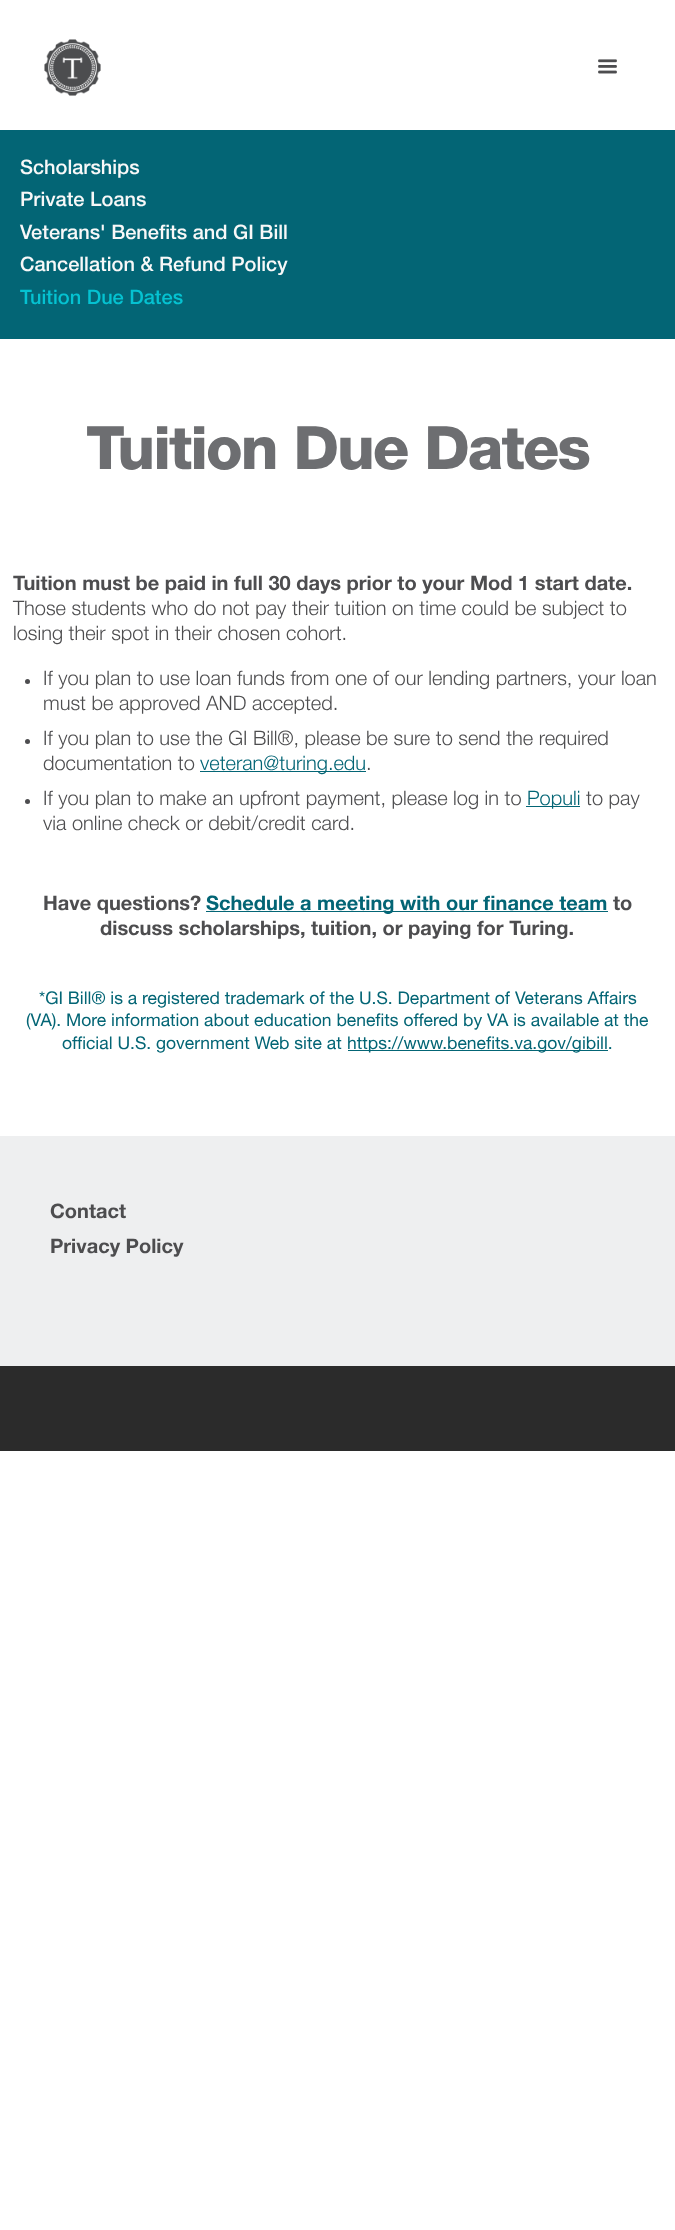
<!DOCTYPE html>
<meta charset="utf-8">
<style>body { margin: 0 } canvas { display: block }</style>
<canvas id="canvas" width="675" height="2230"></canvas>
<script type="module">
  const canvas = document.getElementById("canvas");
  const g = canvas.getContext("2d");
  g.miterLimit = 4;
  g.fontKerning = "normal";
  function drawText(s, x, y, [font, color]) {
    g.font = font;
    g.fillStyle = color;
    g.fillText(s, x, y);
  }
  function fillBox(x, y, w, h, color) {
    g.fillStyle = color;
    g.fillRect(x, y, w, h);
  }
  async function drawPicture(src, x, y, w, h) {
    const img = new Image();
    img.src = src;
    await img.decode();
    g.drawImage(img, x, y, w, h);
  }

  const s1 = ["500 20px Helvetica Neue", "#F8F8F8"];
  const s2 = ["500 20px Helvetica Neue", "#05C2D1"];
  const s3 = ["bold 60px Helvetica Neue", "#6D6E71"];
  const s4 = ["bold 20px 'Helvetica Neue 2'", "#4D4D4F"];
  const s5 = ["300 20px Helvetica Neue", "#4D4D4F"];
  const s6 = ["300 20px Helvetica Neue", "#036575"];
  const s7 = ["bold 20px 'Helvetica Neue 2'", "#036575"];
  const s8 = ["17.5px Helvetica Neue", "#036575"];

  fillBox(0, 0, 675, 2230, "#FFFFFF");
  await drawPicture("pic1.png", 44, 39, 57, 57);
  await drawPicture("pic2.png", 598, 59, 19, 15);
  fillBox(0, 130, 675, 209, "#036575");
  drawText("Scholarships", 20, 174, s1);
  drawText("Private Loans", 20, 206, s1);
  drawText("Veterans' Benefits and GI Bill", 20, 239, s1);
  drawText("Cancellation & Refund Policy", 20, 271, s1);
  drawText("Tuition Due Dates", 20, 304, s2);
  g.letterSpacing = "-2px";
  drawText("Tuition Due Dates", 86, 469, s3);
  g.letterSpacing = "0px";
  drawText("Tuition must be paid in full 30 days prior to your Mod 1 start date.", 13, 590, s4);
  drawText("Those students who do not pay their tuition on time could be subject to", 13, 615, s5);
  drawText("losing their spot in their chosen cohort.", 13, 640, s5);
  g.beginPath();
  g.arc(27.5, 681.5, 2.5, 0, Math.PI * 2);
  g.fill();
  drawText("If you plan to use loan funds from one of our lending partners, your loan", 43, 685, s5);
  drawText("must be approved AND accepted.", 43, 710, s5);
  g.beginPath();
  g.arc(27.5, 741.5, 2.5, 0, Math.PI * 2);
  g.fill();
  drawText("If you plan to use the GI Bill®, please be sure to send the required", 43, 745, s5);
  drawText("documentation to", 43, 770, s5);
  fillBox(200, 771, 166, 1, "#036575");
  drawText("veteran@turing.edu", 200, 770, s6);
  drawText(".", 366, 770, s5);
  g.beginPath();
  g.arc(27.5, 801.5, 2.5, 0, Math.PI * 2);
  g.fill();
  drawText("If you plan to make an upfront payment, please log in to", 43, 805, s5);
  fillBox(526, 806, 54, 1, "#036575");
  drawText("Populi", 527, 805, s6);
  drawText("to pay", 586, 805, s5);
  drawText("via online check or debit/credit card.", 43, 830, s5);
  drawText("Have questions?", 43, 910, s4);
  fillBox(206, 911, 402, 1, "#036575");
  drawText("Schedule a meeting with our finance team", 206, 910, s7);
  drawText("to", 613, 910, s4);
  drawText("discuss scholarships, tuition, or paying for Turing.", 100, 935, s4);
  drawText("*GI Bill® is a registered trademark of the U.S. Department of Veterans Affairs", 39, 1004, s8);
  drawText("(VA). More information about education benefits offered by VA is available at the", 26, 1026, s8);
  drawText("official U.S. government Web site at", 62, 1049, s8);
  fillBox(348, 1050, 260, 1, "#036575");
  drawText("https://www.benefits.va.gov/gibill.", 347, 1049, s8);
  fillBox(0, 1136, 675, 230, "#EEEFF0");
  drawText("Contact", 50, 1218, s4);
  drawText("Privacy Policy", 50, 1253, s4);
  fillBox(0, 1366, 675, 85, "#2B2B2B");
</script>
